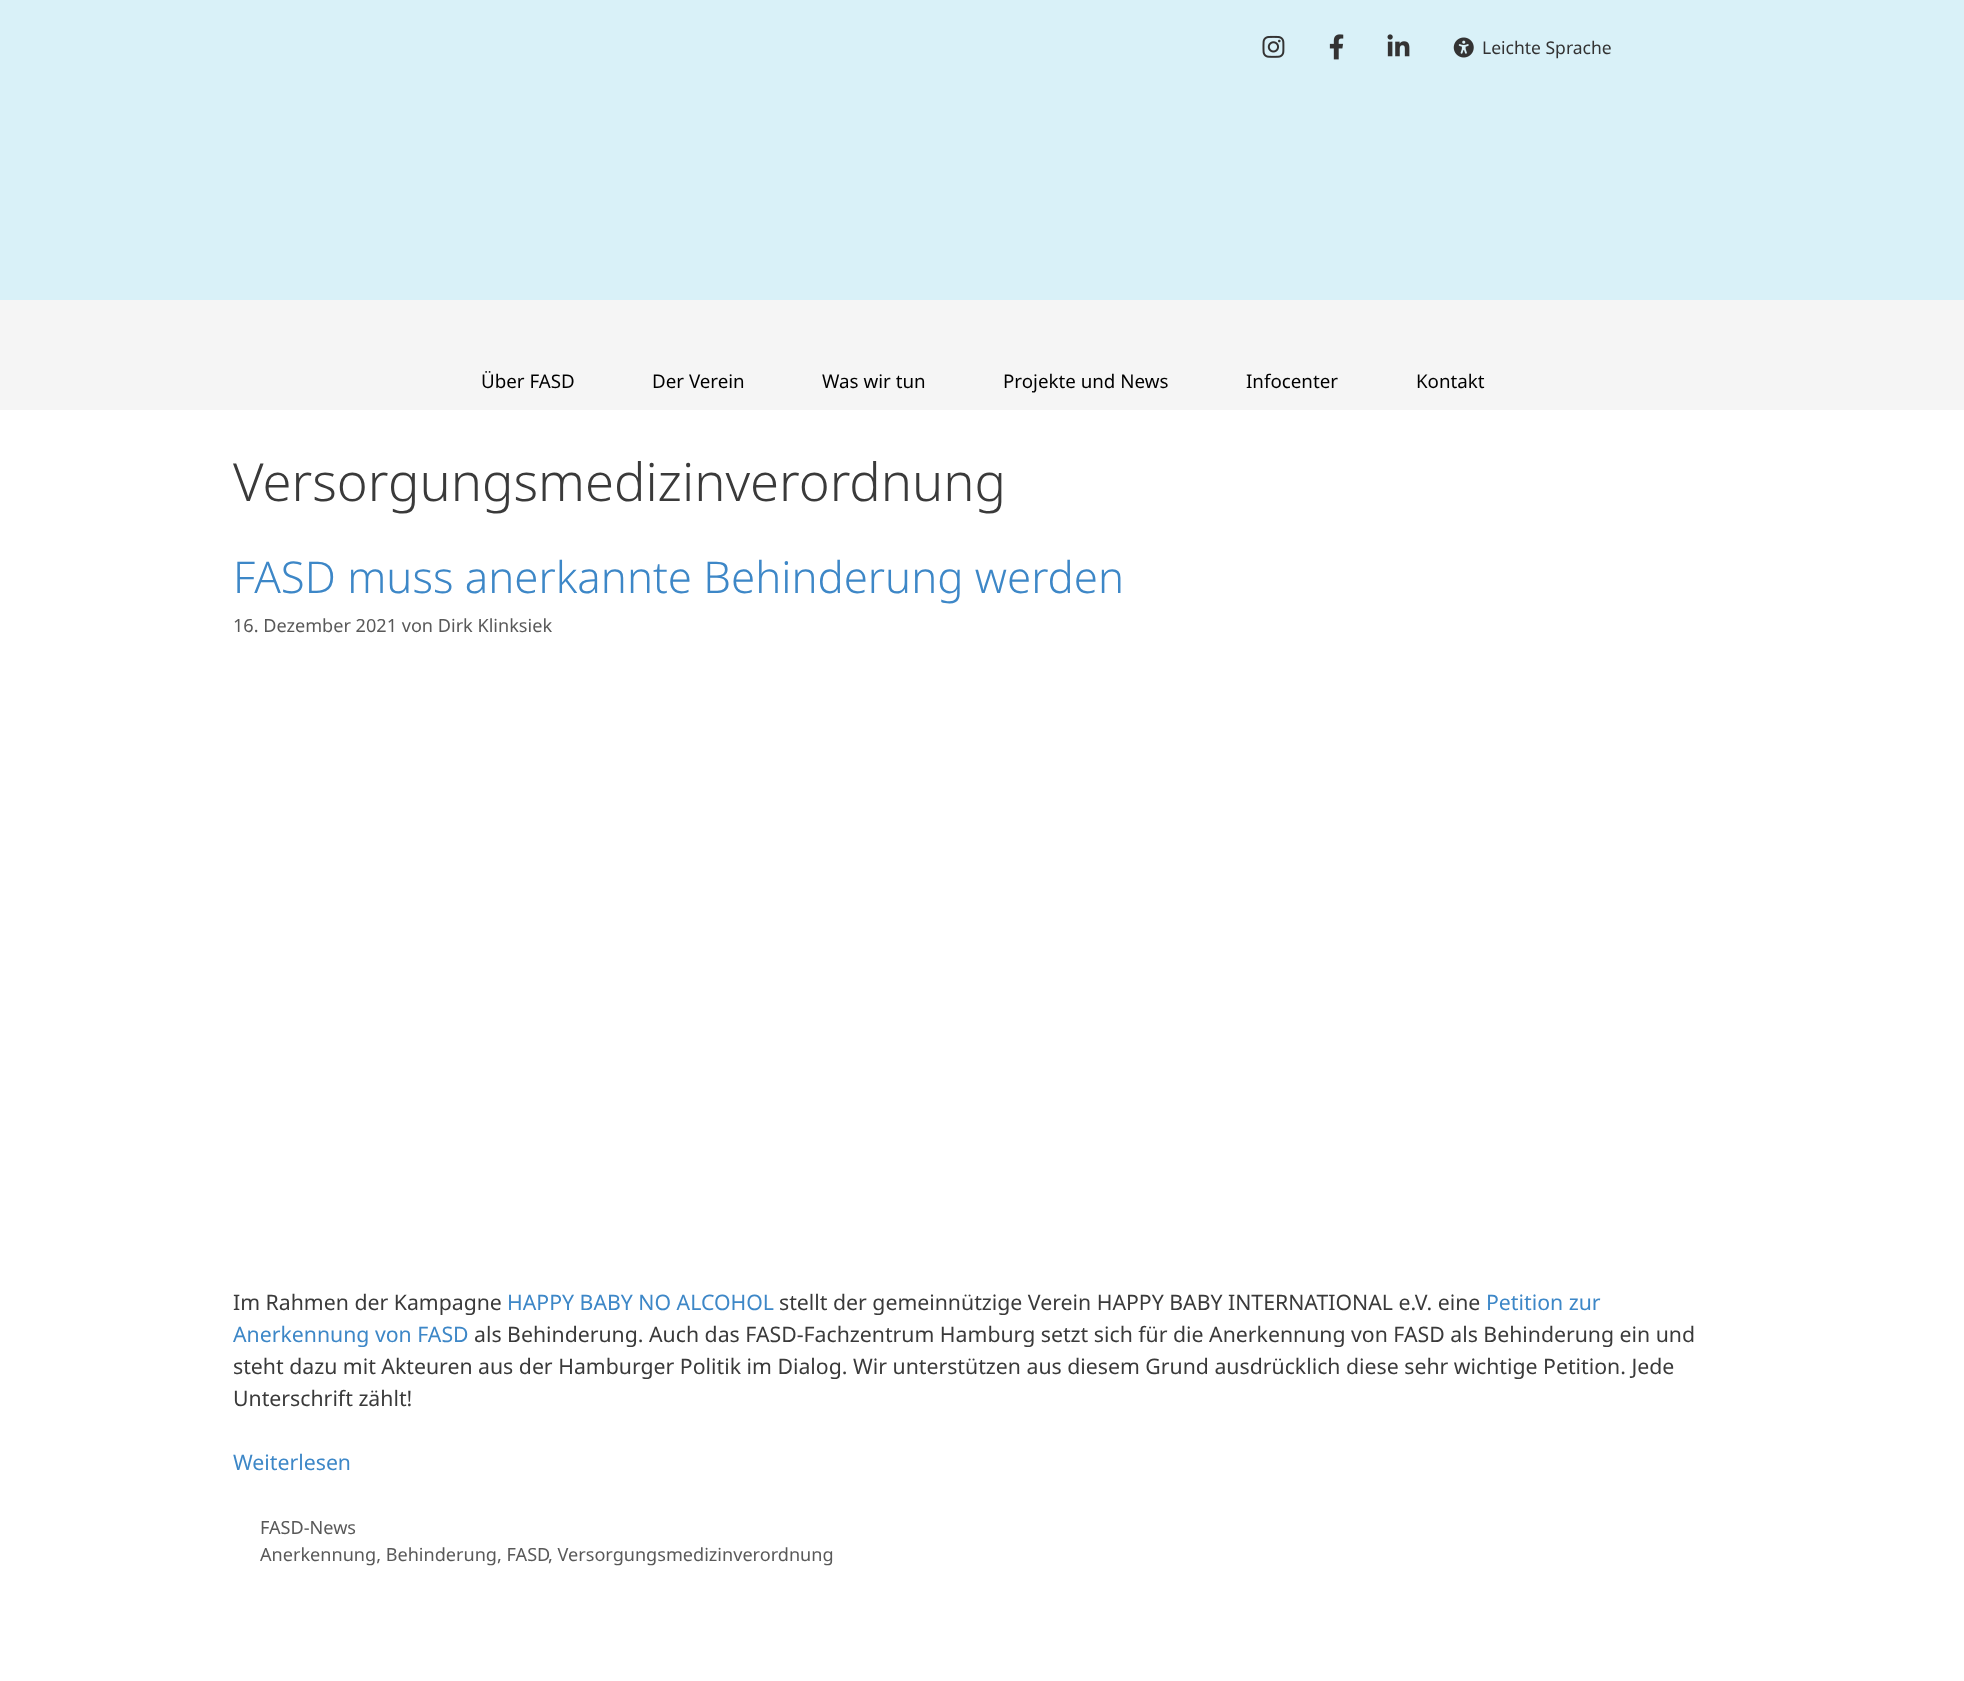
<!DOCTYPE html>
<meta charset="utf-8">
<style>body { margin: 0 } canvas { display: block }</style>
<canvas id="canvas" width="1964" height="1681"></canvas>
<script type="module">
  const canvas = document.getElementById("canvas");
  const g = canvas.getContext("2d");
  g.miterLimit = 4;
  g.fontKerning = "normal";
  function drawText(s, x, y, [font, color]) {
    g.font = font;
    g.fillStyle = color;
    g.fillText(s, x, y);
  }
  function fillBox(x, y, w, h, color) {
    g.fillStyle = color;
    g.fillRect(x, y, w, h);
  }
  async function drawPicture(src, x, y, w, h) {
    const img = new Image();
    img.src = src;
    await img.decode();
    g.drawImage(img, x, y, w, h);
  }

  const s1 = ["17.5px Noto Sans", "#333333"];
  const s2 = ["18.75px Noto Sans", "#000000"];
  const s3 = ["300 52.5px Noto Sans", "#3A3A3A"];
  const s4 = ["300 43.75px Noto Sans", "#3D87C7"];
  const s5 = ["18.1px Noto Sans", "#595959"];
  const s6 = ["21.25px Noto Sans", "#3A3A3A"];
  const s7 = ["21.25px Noto Sans", "#3D87C7"];

  fillBox(0, 0, 1964, 1681, "#FFFFFF");
  fillBox(0, 0, 1964, 300, "#D9F1F8");
  await drawPicture("pic1.png", 1262, 35, 23, 23);
  await drawPicture("pic2.png", 1329, 34, 15, 26);
  await drawPicture("pic3.png", 1387, 34, 23, 23);
  await drawPicture("pic4.png", 1453, 37, 21, 21);
  drawText("Leichte Sprache", 1482, 54, s1);
  fillBox(0, 300, 1964, 110, "#F5F5F5");
  drawText("Über FASD", 481, 388, s2);
  drawText("Der Verein", 652, 388, s2);
  drawText("Was wir tun", 822, 388, s2);
  drawText("Projekte und News", 1003, 388, s2);
  drawText("Infocenter", 1246, 388, s2);
  drawText("Kontakt", 1416, 388, s2);
  drawText("Versorgungsmedizinverordnung", 233, 501, s3);
  drawText("FASD muss anerkannte Behinderung werden", 233, 593, s4);
  drawText("16. Dezember 2021 von Dirk Klinksiek", 233, 632, s5);
  drawText("Im Rahmen der Kampagne", 233, 1310, s6);
  drawText("HAPPY BABY NO ALCOHOL", 507, 1310, s7);
  drawText("stellt der gemeinnützige Verein HAPPY BABY INTERNATIONAL e.V. eine", 779, 1310, s6);
  drawText("Petition zur", 1486, 1310, s7);
  drawText("Anerkennung von FASD", 233, 1342, s7);
  drawText("als Behinderung. Auch das FASD-Fachzentrum Hamburg setzt sich für die Anerkennung von FASD als Behinderung ein und", 474, 1342, s6);
  drawText("steht dazu mit Akteuren aus der Hamburger Politik im Dialog. Wir unterstützen aus diesem Grund ausdrücklich diese sehr wichtige Petition. Jede", 233, 1374, s6);
  drawText("Unterschrift zählt!", 233, 1406, s6);
  drawText("Weiterlesen", 233, 1470, s7);
  drawText("FASD-News", 260, 1534, s5);
  drawText("Anerkennung, Behinderung, FASD", 260, 1561, s5);
  drawText(", Versorgungsmedizinverordnung", 548, 1561, s5);
</script>
